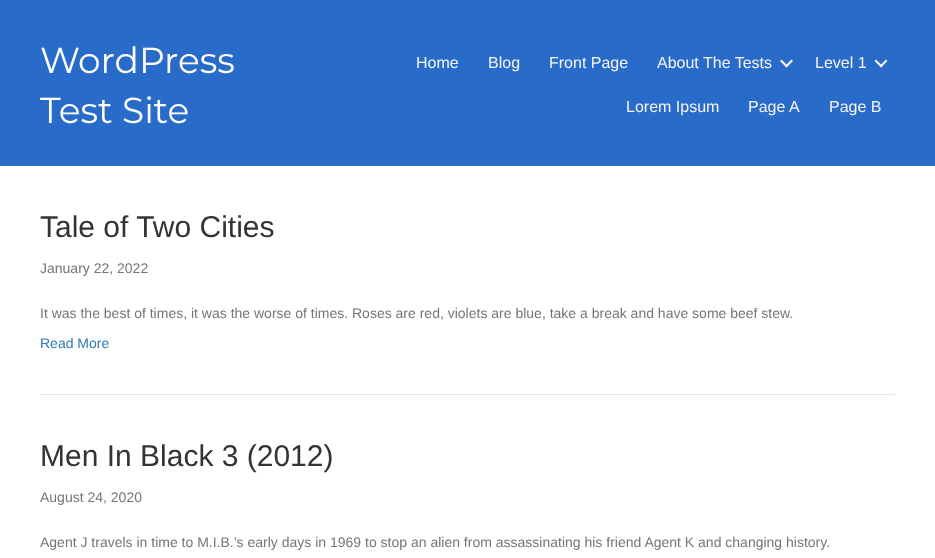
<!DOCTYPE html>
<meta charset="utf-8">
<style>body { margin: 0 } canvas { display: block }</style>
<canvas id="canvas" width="935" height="558"></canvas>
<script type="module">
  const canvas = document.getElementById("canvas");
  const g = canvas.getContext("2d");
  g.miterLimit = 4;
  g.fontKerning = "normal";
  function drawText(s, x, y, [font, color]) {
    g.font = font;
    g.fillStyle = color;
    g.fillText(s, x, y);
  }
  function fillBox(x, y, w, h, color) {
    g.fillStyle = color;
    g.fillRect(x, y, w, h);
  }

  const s1 = ["100 36px Montserrat", "#FFFFFF"];
  const s2 = ["16px Liberation Sans", "#F5F5F5"];
  const s3 = ["30px Liberation Sans", "#333333"];
  const s4 = ["14px Liberation Sans", "#757575"];
  const s5 = ["14px Liberation Sans", "#2B7BB9"];

  fillBox(0, 0, 935, 558, "#FFFFFF");
  fillBox(0, 0, 935, 166, "#296BC9");
  drawText("WordPress", 40, 73, s1);
  drawText("Test Site", 40, 123, s1);
  drawText("Home", 416, 68, s2);
  drawText("Blog", 488, 68, s2);
  drawText("Front Page", 549, 68, s2);
  drawText("About The Tests", 657, 68, s2);
  g.beginPath();
  g.moveTo(791.5, 59.5);
  g.lineTo(793, 61);
  g.lineTo(786.5, 67.5);
  g.lineTo(785, 66);
  g.closePath();
  g.fill();
  g.beginPath();
  g.moveTo(781.5, 59.5);
  g.lineTo(788, 66);
  g.lineTo(786.5, 67.5);
  g.lineTo(780, 61);
  g.closePath();
  g.fill();
  drawText("Level 1", 815, 68, s2);
  g.beginPath();
  g.moveTo(886, 59.5);
  g.lineTo(887.5, 61);
  g.lineTo(881, 67.5);
  g.lineTo(879.5, 66);
  g.closePath();
  g.fill();
  g.beginPath();
  g.moveTo(876, 59.5);
  g.lineTo(882.5, 66);
  g.lineTo(881, 67.5);
  g.lineTo(874.5, 61);
  g.closePath();
  g.fill();
  drawText("Lorem Ipsum", 626, 112, s2);
  drawText("Page A", 748, 112, s2);
  drawText("Page B", 829, 112, s2);
  fillBox(40, 394, 855, 1, "#E6E6E6");
  drawText("Tale of Two Cities", 40, 237, s3);
  drawText("January 22, 2022", 40, 273, s4);
  drawText("It was the best of times, it was the worse of times. Roses are red, violets are blue, take a break and have some beef stew.", 40, 318, s4);
  drawText("Read More", 40, 348, s5);
  drawText("Men In Black 3 (2012)", 40, 466, s3);
  drawText("August 24, 2020", 40, 502, s4);
  drawText("Agent J travels in time to M.I.B.’s early days in 1969 to stop an alien from assassinating his friend Agent K and changing history.", 40, 547, s4);
</script>
